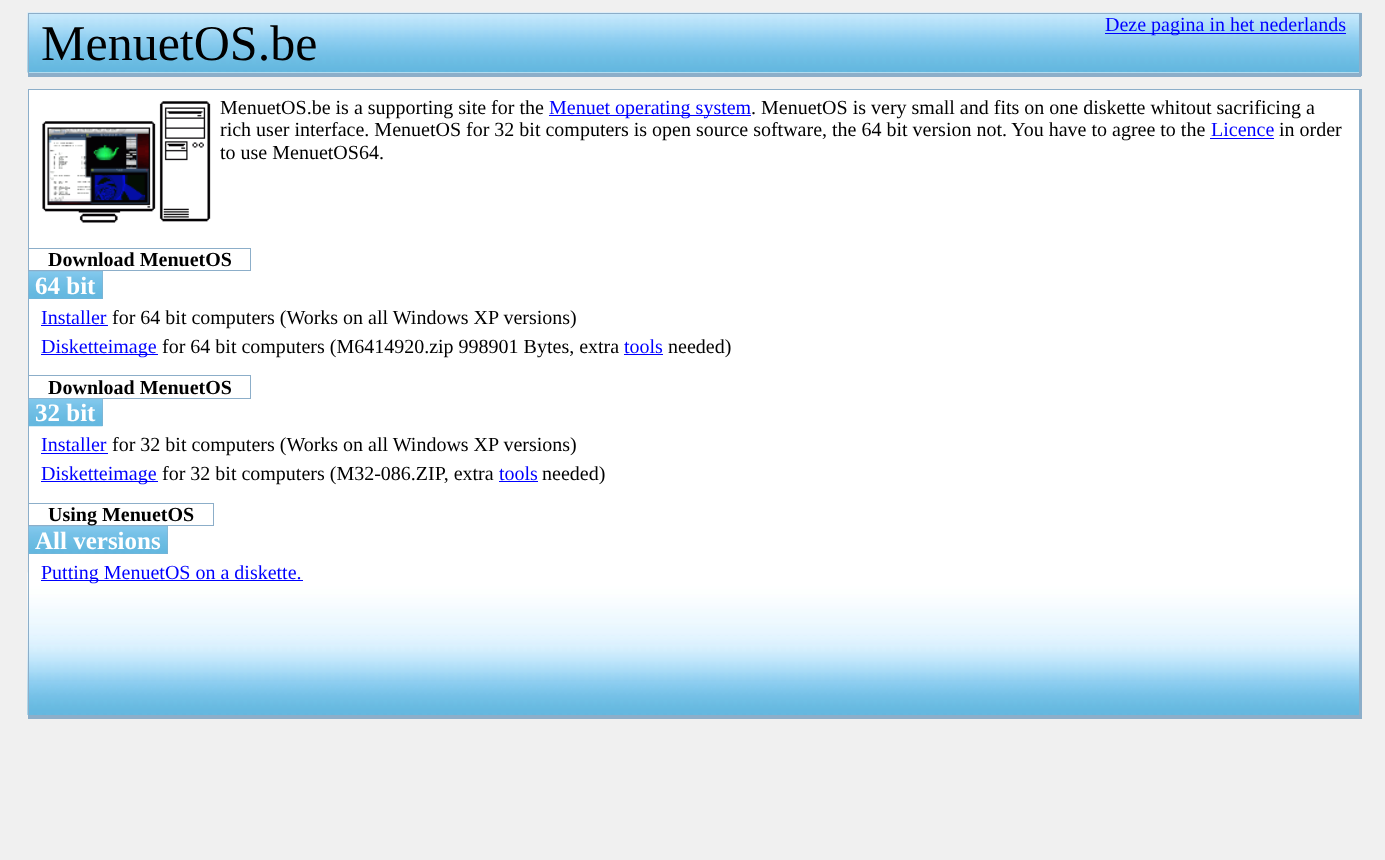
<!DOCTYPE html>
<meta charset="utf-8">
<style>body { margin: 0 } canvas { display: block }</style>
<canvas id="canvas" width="1385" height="860"></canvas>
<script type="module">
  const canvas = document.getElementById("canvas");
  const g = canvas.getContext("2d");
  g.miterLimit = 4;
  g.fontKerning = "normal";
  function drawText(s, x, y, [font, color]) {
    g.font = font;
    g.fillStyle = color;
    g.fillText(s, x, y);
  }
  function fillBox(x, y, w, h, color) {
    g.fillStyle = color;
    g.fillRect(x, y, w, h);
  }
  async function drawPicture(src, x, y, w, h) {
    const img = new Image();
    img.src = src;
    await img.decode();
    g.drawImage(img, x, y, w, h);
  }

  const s1 = ["50px Liberation Serif", "#000000"];
  const s2 = ["20px Liberation Serif", "#0000FF"];
  const s3 = ["20px Liberation Serif", "#000000"];
  const s4 = ["bold 20px Liberation Serif", "#000000"];
  const s5 = ["bold 25px Liberation Serif", "#FFFFFF"];

  fillBox(0, 0, 1385, 860, "#F0F0F0");
  fillBox(29, 72, 1330, 1, "#FFFFFF");
  await drawPicture("pic1.png", 27, 12, 1335, 61);
  fillBox(28, 13, 1333, 1, "#8CAEC9");
  fillBox(1359, 13, 3, 63, "#8CAEC9");
  fillBox(28, 73, 1333, 4, "#8CAEC9");
  fillBox(28, 13, 1, 63, "#8CAEC9");
  drawText("MenuetOS.be", 41, 60, s1);
  fillBox(1105, 33, 241, 1, "#0000FF");
  drawText("Deze pagina in het nederlands", 1105, 31, s2);
  fillBox(29, 90, 1330, 483, "#FFFFFF");
  await drawPicture("pic2.png", 27, 572, 1332, 143);
  fillBox(28, 89, 1333, 1, "#8CAEC9");
  fillBox(1359, 89, 3, 630, "#8CAEC9");
  fillBox(28, 715, 1333, 4, "#8CAEC9");
  fillBox(28, 89, 1, 630, "#8CAEC9");
  await drawPicture("pic3.png", 42, 101, 169, 122);
  drawText("MenuetOS.be is a supporting site for the", 220, 114, s3);
  fillBox(549, 115, 202, 1, "#0000FF");
  drawText("Menuet operating system", 549, 114, s2);
  drawText(". MenuetOS is very small and fits on one diskette whitout sacrificing a", 751, 114, s3);
  drawText("rich user interface. MenuetOS for 32 bit computers is open source software, the 64 bit version not. You have to agree to the", 220, 136, s3);
  drawText("Licence", 1211, 136, s2);
  fillBox(1210, 138, 64, 1, "#0000FF");
  drawText("in order", 1279, 136, s3);
  drawText("to use MenuetOS64.", 220, 159, s3);
  drawText("Download MenuetOS", 48, 266, s4);
  fillBox(29, 248, 222, 1, "#8CAEC9");
  fillBox(250, 248, 1, 23, "#8CAEC9");
  fillBox(29, 270, 222, 1, "#8CAEC9");
  fillBox(29, 271, 74, 28, "#8CAEC9");
  await drawPicture("pic4.png", 28, 271, 75, 28);
  drawText("64 bit", 35, 294, s5);
  drawText("Installer", 41, 324, s2);
  fillBox(41, 325, 67, 1, "#0000FF");
  drawText("for 64 bit computers (Works on all Windows XP versions)", 112, 324, s3);
  fillBox(41, 354, 117, 1, "#0000FF");
  drawText("Disketteimage", 41, 353, s2);
  drawText("for 64 bit computers (M6414920.zip 998901 Bytes, extra", 162, 353, s3);
  drawText("tools", 624, 353, s2);
  fillBox(624, 354, 39, 1, "#0000FF");
  drawText("needed)", 668, 353, s3);
  drawText("Download MenuetOS", 48, 394, s4);
  fillBox(29, 375, 222, 1, "#8CAEC9");
  fillBox(250, 375, 1, 24, "#8CAEC9");
  fillBox(29, 398, 222, 1, "#8CAEC9");
  fillBox(102, 399, 1, 27, "#8CAEC9");
  await drawPicture("pic5.png", 28, 398, 75, 29);
  drawText("32 bit", 35, 421, s5);
  drawText("Installer", 41, 451, s2);
  fillBox(41, 453, 67, 1, "#0000FF");
  drawText("for 32 bit computers (Works on all Windows XP versions)", 112, 451, s3);
  fillBox(41, 481, 117, 1, "#0000FF");
  drawText("Disketteimage", 41, 480, s2);
  drawText("for 32 bit computers (M32-086.ZIP, extra", 162, 480, s3);
  drawText("tools", 499, 480, s2);
  fillBox(499, 481, 39, 1, "#0000FF");
  drawText("needed)", 542, 480, s3);
  fillBox(29, 503, 185, 1, "#8CAEC9");
  fillBox(213, 503, 1, 23, "#8CAEC9");
  fillBox(29, 525, 185, 1, "#8CAEC9");
  drawText("Using MenuetOS", 48, 521, s4);
  fillBox(29, 526, 139, 28, "#8CAEC9");
  await drawPicture("pic6.png", 28, 526, 140, 28);
  drawText("All versions", 35, 549, s5);
  fillBox(41, 580, 262, 1, "#0000FF");
  drawText("Putting MenuetOS on a diskette.", 41, 579, s2);
</script>
